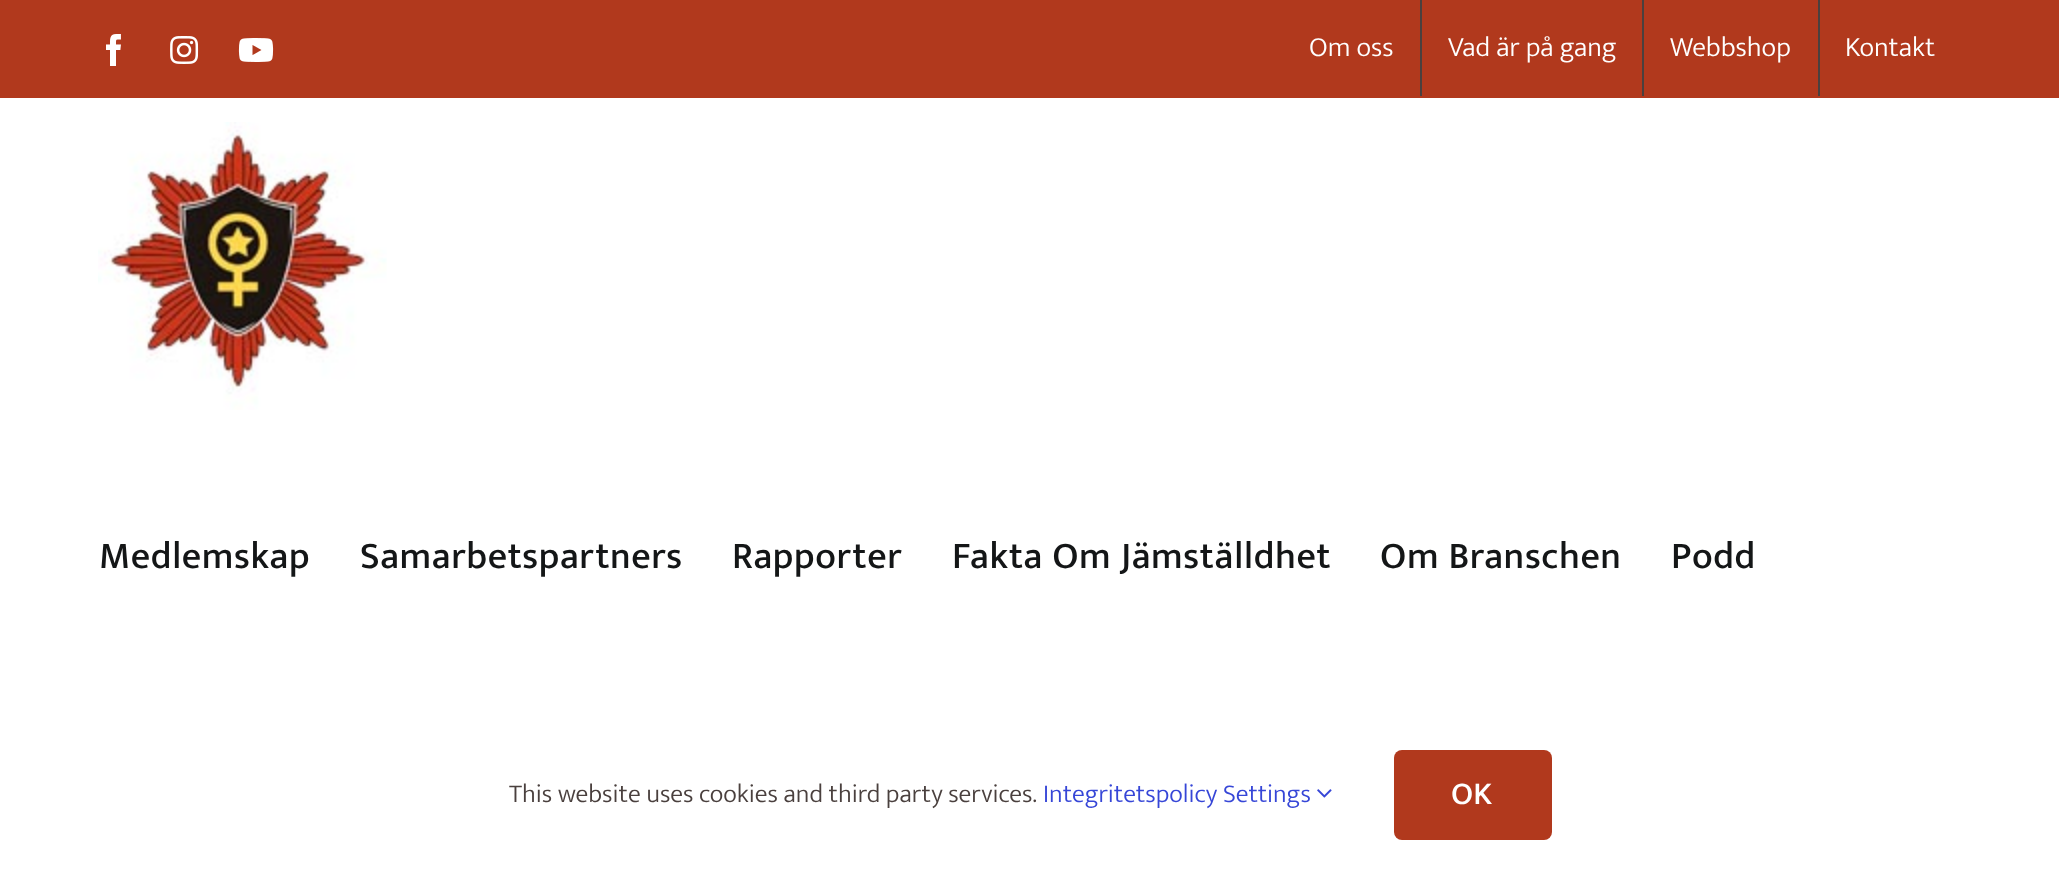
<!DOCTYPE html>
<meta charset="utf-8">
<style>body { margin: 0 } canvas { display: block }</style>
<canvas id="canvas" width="2059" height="870"></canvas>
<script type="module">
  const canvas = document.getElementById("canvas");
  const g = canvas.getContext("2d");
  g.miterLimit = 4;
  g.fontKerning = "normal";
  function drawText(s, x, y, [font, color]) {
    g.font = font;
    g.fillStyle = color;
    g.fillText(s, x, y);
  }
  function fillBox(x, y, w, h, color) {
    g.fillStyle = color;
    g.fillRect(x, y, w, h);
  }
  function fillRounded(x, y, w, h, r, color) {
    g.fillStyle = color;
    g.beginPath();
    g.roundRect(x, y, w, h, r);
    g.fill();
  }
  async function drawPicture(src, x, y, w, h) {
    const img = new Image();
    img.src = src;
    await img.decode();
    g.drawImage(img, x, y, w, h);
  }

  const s1 = ["300 28px Mukta", "#FFFFFF"];
  const s2 = ["500 38px Mukta", "#141617"];
  const s3 = ["300 26px Mukta", "#4A403E"];
  const s4 = ["300 26px Mukta", "#3646D7"];
  const s5 = ["500 32px Mukta", "#FFFFFF"];

  fillBox(0, 0, 2059, 870, "#FFFFFF");
  fillBox(0, 0, 2059, 98, "#B1391D");
  await drawPicture("pic1.png", 106, 34, 15, 32);
  await drawPicture("pic2.png", 170, 36, 29, 28);
  await drawPicture("pic3.png", 238, 38, 36, 24);
  drawText("Om oss", 1309, 56, s1);
  fillBox(1420, 0, 2, 96, "#4A403E");
  drawText("Vad är på gang", 1448, 56, s1);
  fillBox(1642, 0, 2, 96, "#4A403E");
  drawText("Webbshop", 1670, 56, s1);
  fillBox(1818, 0, 2, 96, "#4A403E");
  drawText("Kontakt", 1845, 56, s1);
  await drawPicture("pic4.png", 98, 122, 289, 288);
  g.letterSpacing = "0.6px";
  drawText("Medlemskap", 99, 568, s2);
  drawText("Samarbetspartners", 360, 568, s2);
  drawText("Rapporter", 732, 568, s2);
  drawText("Fakta Om Jämställdhet", 952, 568, s2);
  drawText("Om Branschen", 1380, 568, s2);
  drawText("Podd", 1671, 568, s2);
  g.letterSpacing = "0px";
  drawText("This website uses cookies and third party services.", 509, 802, s3);
  drawText("Integritetspolicy Settings", 1043, 802, s4);
  await drawPicture("pic5.png", 1317, 789, 15, 9);
  fillRounded(1394, 750, 158, 90, 8, "#B1391D");
  drawText("OK", 1451, 804, s5);
</script>
